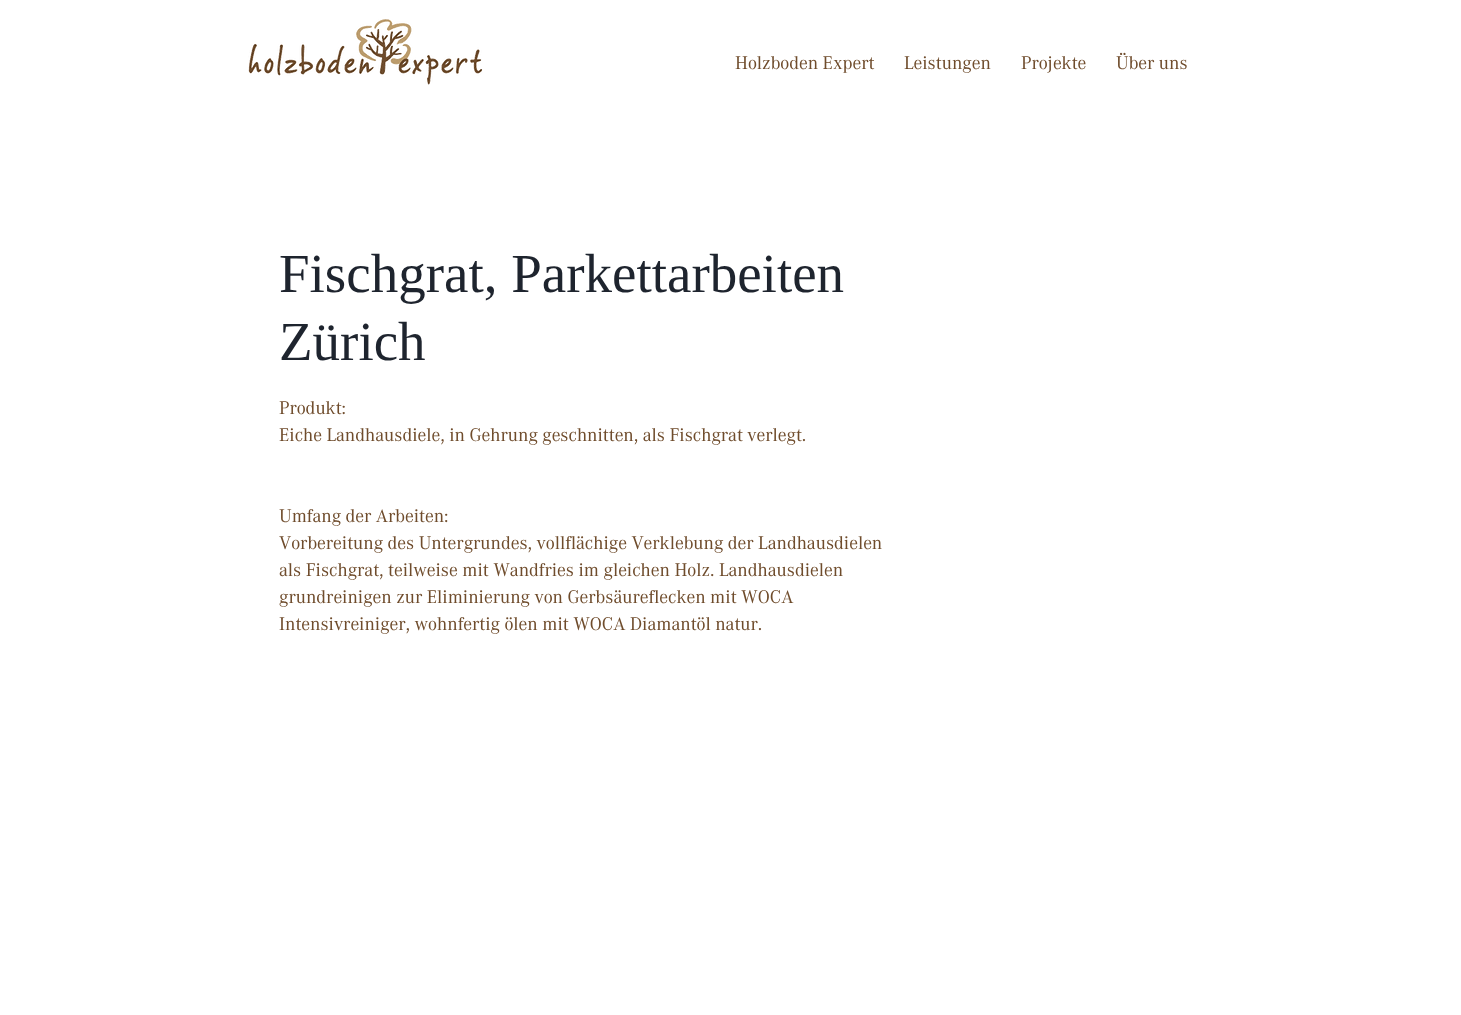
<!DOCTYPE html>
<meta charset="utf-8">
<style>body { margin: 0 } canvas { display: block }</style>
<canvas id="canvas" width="1461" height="1015"></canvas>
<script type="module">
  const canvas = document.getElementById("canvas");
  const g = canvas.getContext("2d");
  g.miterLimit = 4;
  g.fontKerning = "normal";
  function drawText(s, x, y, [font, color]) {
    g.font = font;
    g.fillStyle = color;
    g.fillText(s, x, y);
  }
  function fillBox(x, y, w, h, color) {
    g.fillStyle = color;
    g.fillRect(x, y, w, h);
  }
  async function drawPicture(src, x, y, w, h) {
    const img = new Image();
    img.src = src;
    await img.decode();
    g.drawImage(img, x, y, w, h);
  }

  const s1 = ["18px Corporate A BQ", "#6F4C2C"];
  const s2 = ["55px Liberation Serif", "#1E242E"];

  fillBox(0, 0, 1461, 1015, "#FFFFFF");
  await drawPicture("pic1.png", 248, 19, 235, 66);
  drawText("Holzboden Expert", 735, 69, s1);
  drawText("Leistungen", 904, 69, s1);
  drawText("Projekte", 1021, 69, s1);
  drawText("Über uns", 1116, 69, s1);
  drawText("Fischgrat, Parkettarbeiten", 279, 292, s2);
  drawText("Zürich", 279, 360, s2);
  drawText("Produkt:", 279, 414, s1);
  drawText("Eiche Landhausdiele, in Gehrung geschnitten, als Fischgrat verlegt.", 279, 441, s1);
  drawText("Umfang der Arbeiten:", 279, 522, s1);
  drawText("Vorbereitung des Untergrundes, vollflächige Verklebung der Landhausdielen", 279, 549, s1);
  drawText("als Fischgrat, teilweise mit Wandfries im gleichen Holz. Landhausdielen", 279, 576, s1);
  drawText("grundreinigen zur Eliminierung von Gerbsäureflecken mit WOCA", 279, 603, s1);
  drawText("Intensivreiniger, wohnfertig ölen mit WOCA Diamantöl natur.", 279, 630, s1);
</script>
